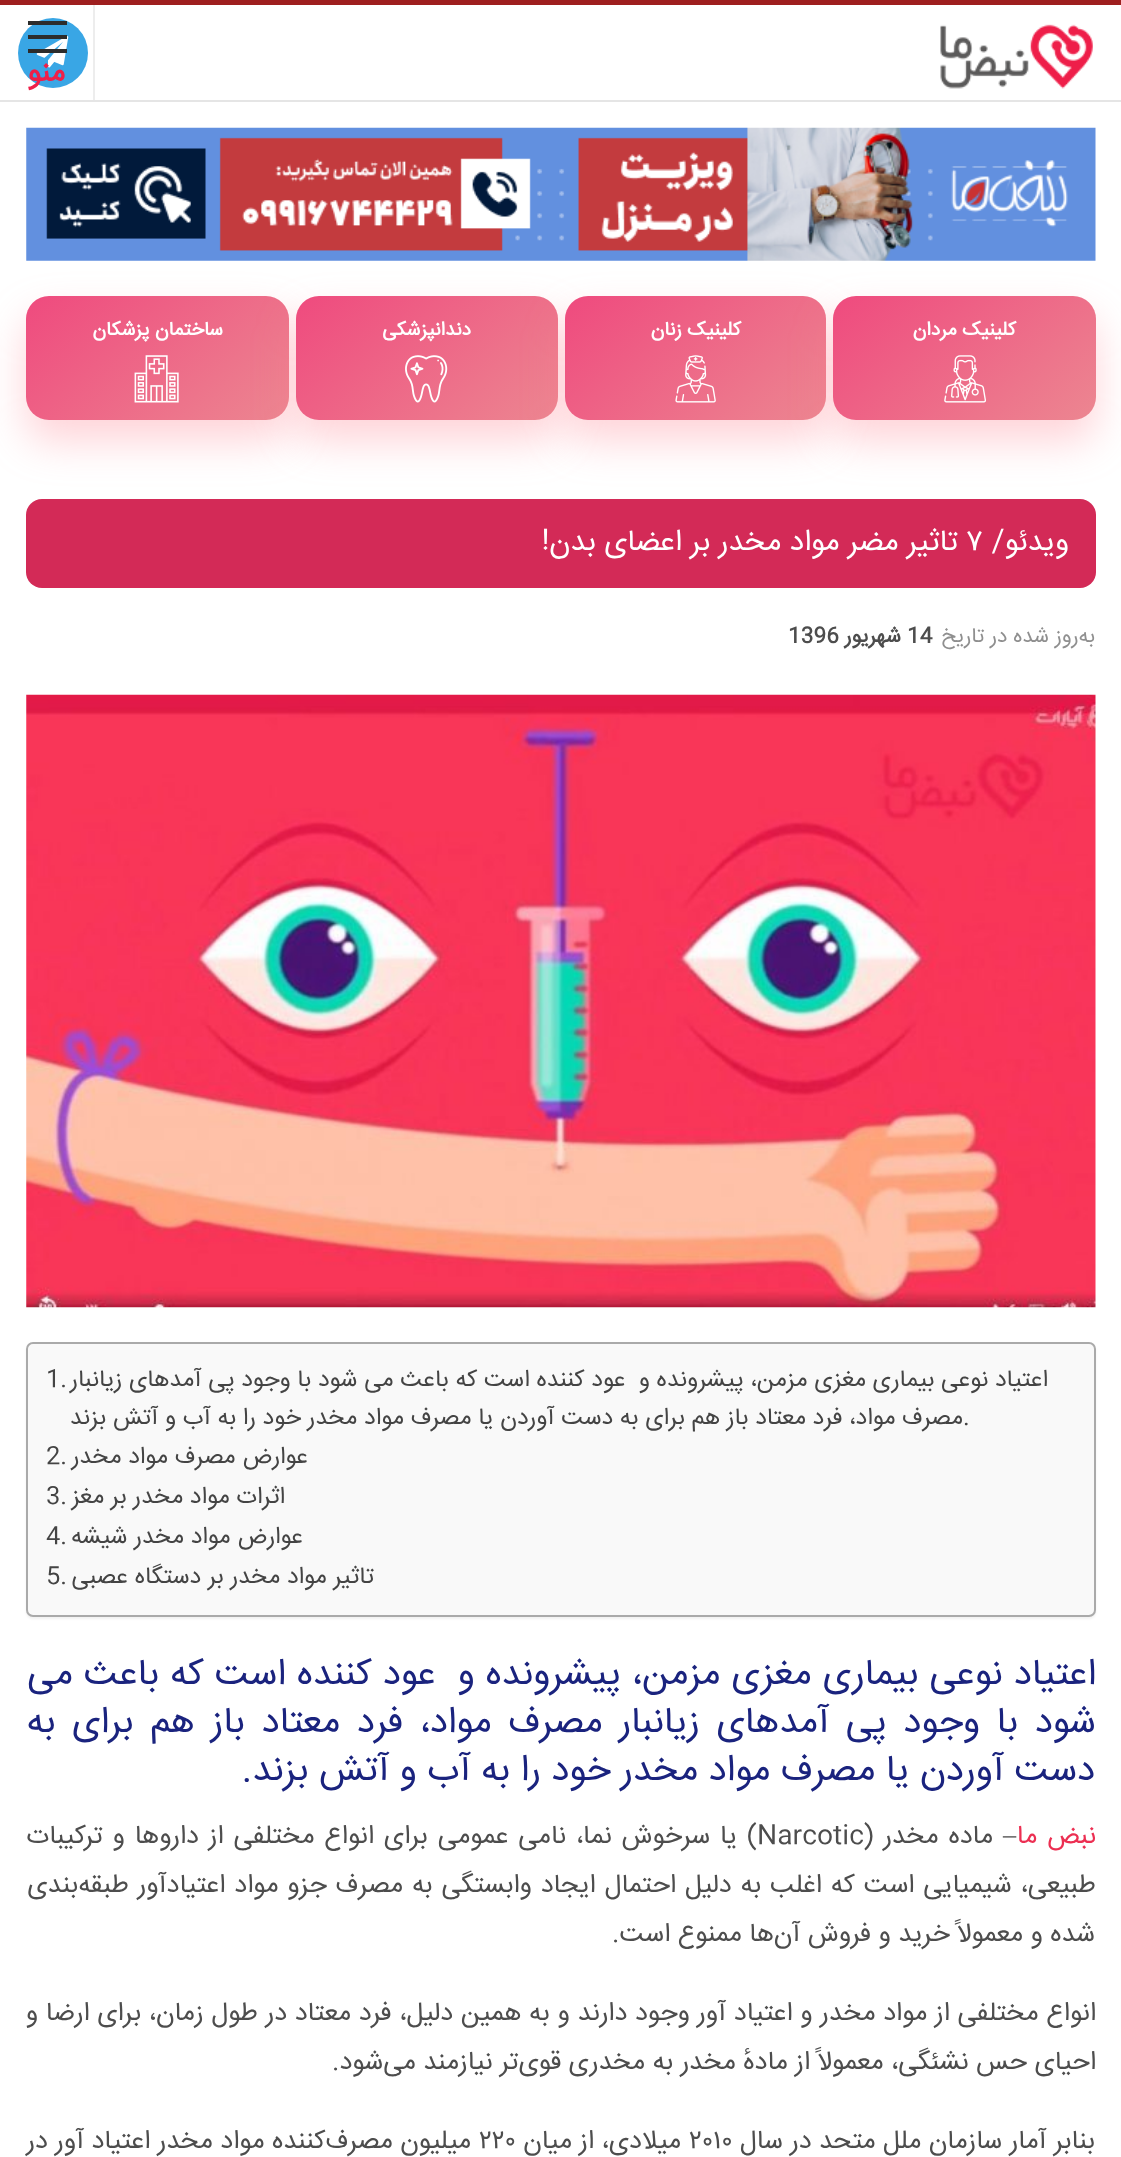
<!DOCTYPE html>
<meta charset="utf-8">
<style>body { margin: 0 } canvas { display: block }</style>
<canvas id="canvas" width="1121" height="2157"></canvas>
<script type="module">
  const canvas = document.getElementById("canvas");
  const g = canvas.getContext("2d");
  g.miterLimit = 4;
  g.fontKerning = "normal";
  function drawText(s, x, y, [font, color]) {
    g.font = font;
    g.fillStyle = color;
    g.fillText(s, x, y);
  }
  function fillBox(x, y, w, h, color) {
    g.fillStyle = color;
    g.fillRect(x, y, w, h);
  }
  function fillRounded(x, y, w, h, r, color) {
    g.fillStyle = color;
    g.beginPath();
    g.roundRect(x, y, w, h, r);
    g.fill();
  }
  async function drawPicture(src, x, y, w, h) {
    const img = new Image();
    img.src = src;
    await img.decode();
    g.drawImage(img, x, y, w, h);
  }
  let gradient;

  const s1 = ["bold 29.75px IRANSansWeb", "#EF1F49"];
  const s2 = ["bold 19.25px IRANSansWeb", "#FFFFFF"];
  const s3 = ["29.75px IRANSansWeb", "#FFFFFF"];
  const s4 = ["21px IRANSansWeb", "#8F8F8F"];
  const s5 = ["bold 21px IRANSansWeb", "#4D4D4D"];
  const s6 = ["23.7px IRANSansWeb", "#444444"];
  const s7 = ["36.75px IRANSansWeb", "#1A237E"];
  const s8 = ["26.25px IRANSansWeb", "#EC2F52"];
  const s9 = ["26.25px Liberation Serif", "#4D4D4D"];
  const s10 = ["26.25px IRANSansWeb", "#4D4D4D"];

  fillBox(0, 0, 1121, 2157, "#9E1F1F");
  fillBox(0, 5, 1121, 2152, "#FFFFFF");
  fillBox(0, 100, 1121, 2, "#E5E5E5");
  await drawPicture("pic1.png", 940, 24, 153, 65);
  g.fillStyle = "#39A6E5";
  g.beginPath();
  g.arc(53, 53, 35, 0, Math.PI * 2);
  g.fill();
  await drawPicture("pic2.png", 36, 36, 33, 32);
  fillBox(93, 5, 2, 95, "#EDEDED");
  fillBox(28, 35, 39, 4, "#2C2C2C");
  fillBox(28, 21, 39, 4, "#2C2C2C");
  fillBox(28, 49, 39, 4, "#2C2C2C");
  g.direction = "rtl";
  drawText("منو", 65, 81, s1);
  await drawPicture("pic3.png", 26, 127, 1070, 134);
  fillRounded(26, 499, 1070, 89, 16, "#D32A57");
  g.fillStyle = "rgba(255, 125, 142, 0.34)";
  g.filter = "blur(21px)";
  g.beginPath();
  g.roundRect(26, 317, 263, 124, 23);
  g.fill();
  g.filter = "none";
  gradient = g.createLinearGradient(80, 250, 261, 465);
  gradient.addColorStop(0, "#EF4A7E");
  gradient.addColorStop(1, "#EC8A92");
  g.fillStyle = gradient;
  g.beginPath();
  g.roundRect(26, 296, 263, 124, 23);
  g.fill();
  g.fillStyle = "rgba(255, 125, 142, 0.34)";
  g.filter = "blur(21px)";
  g.beginPath();
  g.roundRect(296, 317, 262, 124, 23);
  g.fill();
  g.filter = "none";
  gradient = g.createLinearGradient(350, 250, 530, 465);
  gradient.addColorStop(0, "#EF4A7E");
  gradient.addColorStop(1, "#EC8A92");
  g.fillStyle = gradient;
  g.beginPath();
  g.roundRect(296, 296, 262, 124, 23);
  g.fill();
  g.fillStyle = "rgba(255, 125, 142, 0.34)";
  g.filter = "blur(21px)";
  g.beginPath();
  g.roundRect(565, 317, 261, 124, 23);
  g.fill();
  g.filter = "none";
  gradient = g.createLinearGradient(619, 251, 799, 465);
  gradient.addColorStop(0, "#EF4A7E");
  gradient.addColorStop(1, "#EC8A92");
  g.fillStyle = gradient;
  g.beginPath();
  g.roundRect(565, 296, 261, 124, 23);
  g.fill();
  g.fillStyle = "rgba(255, 125, 142, 0.34)";
  g.filter = "blur(21px)";
  g.beginPath();
  g.roundRect(833, 317, 263, 124, 23);
  g.fill();
  g.filter = "none";
  gradient = g.createLinearGradient(887, 250, 1068, 465);
  gradient.addColorStop(0, "#EF4A7E");
  gradient.addColorStop(1, "#EC8A92");
  g.fillStyle = gradient;
  g.beginPath();
  g.roundRect(833, 296, 263, 124, 23);
  g.fill();
  drawText("کلینیک مردان", 1016, 335, s2);
  await drawPicture("pic4.png", 944, 355, 42, 48);
  drawText("کلینیک زنان", 741, 335, s2);
  await drawPicture("pic5.png", 675, 355, 41, 48);
  drawText("دندانپزشکی", 471, 335, s2);
  await drawPicture("pic6.png", 405, 355, 43, 48);
  drawText("ساختمان پزشکان", 223, 335, s2);
  await drawPicture("pic7.png", 134, 355, 45, 48);
  drawText("ویدئو/", 1069, 550, s3);
  g.direction = "ltr";
  drawText("۷", 966, 550, s3);
  g.direction = "rtl";
  drawText("تاثیر مضر مواد مخدر بر اعضای بدن!", 958, 550, s3);
  drawText("به‌روز شده در تاریخ", 1095, 642, s4);
  g.direction = "ltr";
  drawText("14", 907, 642, s5);
  g.direction = "rtl";
  drawText("شهریور", 901, 642, s5);
  g.direction = "ltr";
  drawText("1396", 788, 642, s5);
  await drawPicture("pic8.png", 26, 694, 1070, 614);
  g.fillStyle = "rgba(0, 0, 0, 0.05)";
  g.filter = "blur(1px)";
  g.beginPath();
  g.roundRect(26, 1344, 1070, 275, 7);
  g.fill();
  g.filter = "none";
  g.fillStyle = "#F9F9F9";
  g.beginPath();
  g.roundRect(27, 1343, 1068, 273, 6);
  g.fill();
  g.strokeStyle = "#AAAAAA";
  g.lineWidth = 2;
  g.stroke();
  g.direction = "rtl";
  drawText("اعتیاد نوعی بیماری مغزی مزمن، پیشرونده و  عود کننده است که باعث می شود با وجود پی آمدهای زیانبار", 1048, 1386, s6);
  g.direction = "ltr";
  drawText("1.", 46, 1386, s6);
  drawText(".", 963, 1424, s6);
  g.direction = "rtl";
  drawText("مصرف مواد، فرد معتاد باز هم برای به دست آوردن یا مصرف مواد مخدر خود را به آب و آتش بزند", 963, 1424, s6);
  drawText("عوارض مصرف مواد مخدر", 308, 1463, s6);
  g.direction = "ltr";
  drawText("2.", 46, 1463, s6);
  g.direction = "rtl";
  drawText("اثرات مواد مخدر بر مغز", 285, 1503, s6);
  g.direction = "ltr";
  drawText("3.", 46, 1503, s6);
  g.direction = "rtl";
  drawText("عوارض مواد مخدر شیشه", 303, 1543, s6);
  g.direction = "ltr";
  drawText("4.", 46, 1543, s6);
  g.direction = "rtl";
  drawText("تاثیر مواد مخدر بر دستگاه عصبی", 374, 1583, s6);
  g.direction = "ltr";
  drawText("5.", 46, 1583, s6);
  g.wordSpacing = "0.6px";
  g.direction = "rtl";
  drawText("اعتیاد نوعی بیماری مغزی مزمن، پیشرونده و  عود کننده است که باعث می", 1096, 1684, s7);
  g.wordSpacing = "6.25px";
  drawText("شود با وجود پی آمدهای زیانبار مصرف مواد، فرد معتاد باز هم برای به", 1096, 1732, s7);
  g.wordSpacing = "0px";
  drawText("دست آوردن یا مصرف مواد مخدر خود را به آب و آتش بزند.", 1095, 1780, s7);
  g.wordSpacing = "2.4px";
  drawText("نبض ما", 1096, 1843, s8);
  g.wordSpacing = "0px";
  drawText("–", 1016, 1843, s9);
  g.wordSpacing = "2.4px";
  drawText("ماده مخدر (", 993, 1843, s10);
  g.wordSpacing = "0px";
  g.direction = "ltr";
  drawText("Narcotic", 757, 1843, s10);
  g.wordSpacing = "2.4px";
  g.direction = "rtl";
  drawText(") یا سرخوش نما، نامی عمومی برای انواع مختلفی از داروها و ترکیبات", 757, 1843, s10);
  g.wordSpacing = "1.4px";
  drawText("طبیعی، شیمیایی است که اغلب به دلیل احتمال ایجاد وابستگی به مصرف جزو مواد اعتیادآور طبقه‌بندی", 1096, 1892, s10);
  g.wordSpacing = "0px";
  drawText("شده و معمولاً خرید و فروش آن‌ها ممنوع است.", 1095, 1941, s10);
  g.wordSpacing = "0.25px";
  drawText("انواع مختلفی از مواد مخدر و اعتیاد آور وجود دارند و به همین دلیل، فرد معتاد در طول زمان، برای ارضا و", 1096, 2020, s10);
  g.wordSpacing = "0px";
  drawText("احیای حس نشئگی، معمولاً از مادهٔ مخدر به مخدری قوی‌تر نیازمند می‌شود.", 1096, 2069, s10);
  drawText("بنابر آمار سازمان ملل متحد در سال", 1095, 2148, s10);
  g.direction = "ltr";
  drawText("۲۰۱۰", 689, 2148, s10);
  g.direction = "rtl";
  drawText("میلادی، از میان", 681, 2148, s10);
  g.direction = "ltr";
  drawText("۲۲۰", 479, 2148, s10);
  g.direction = "rtl";
  drawText("میلیون مصرف‌کننده مواد مخدر اعتیاد آور در", 471, 2148, s10);
</script>
